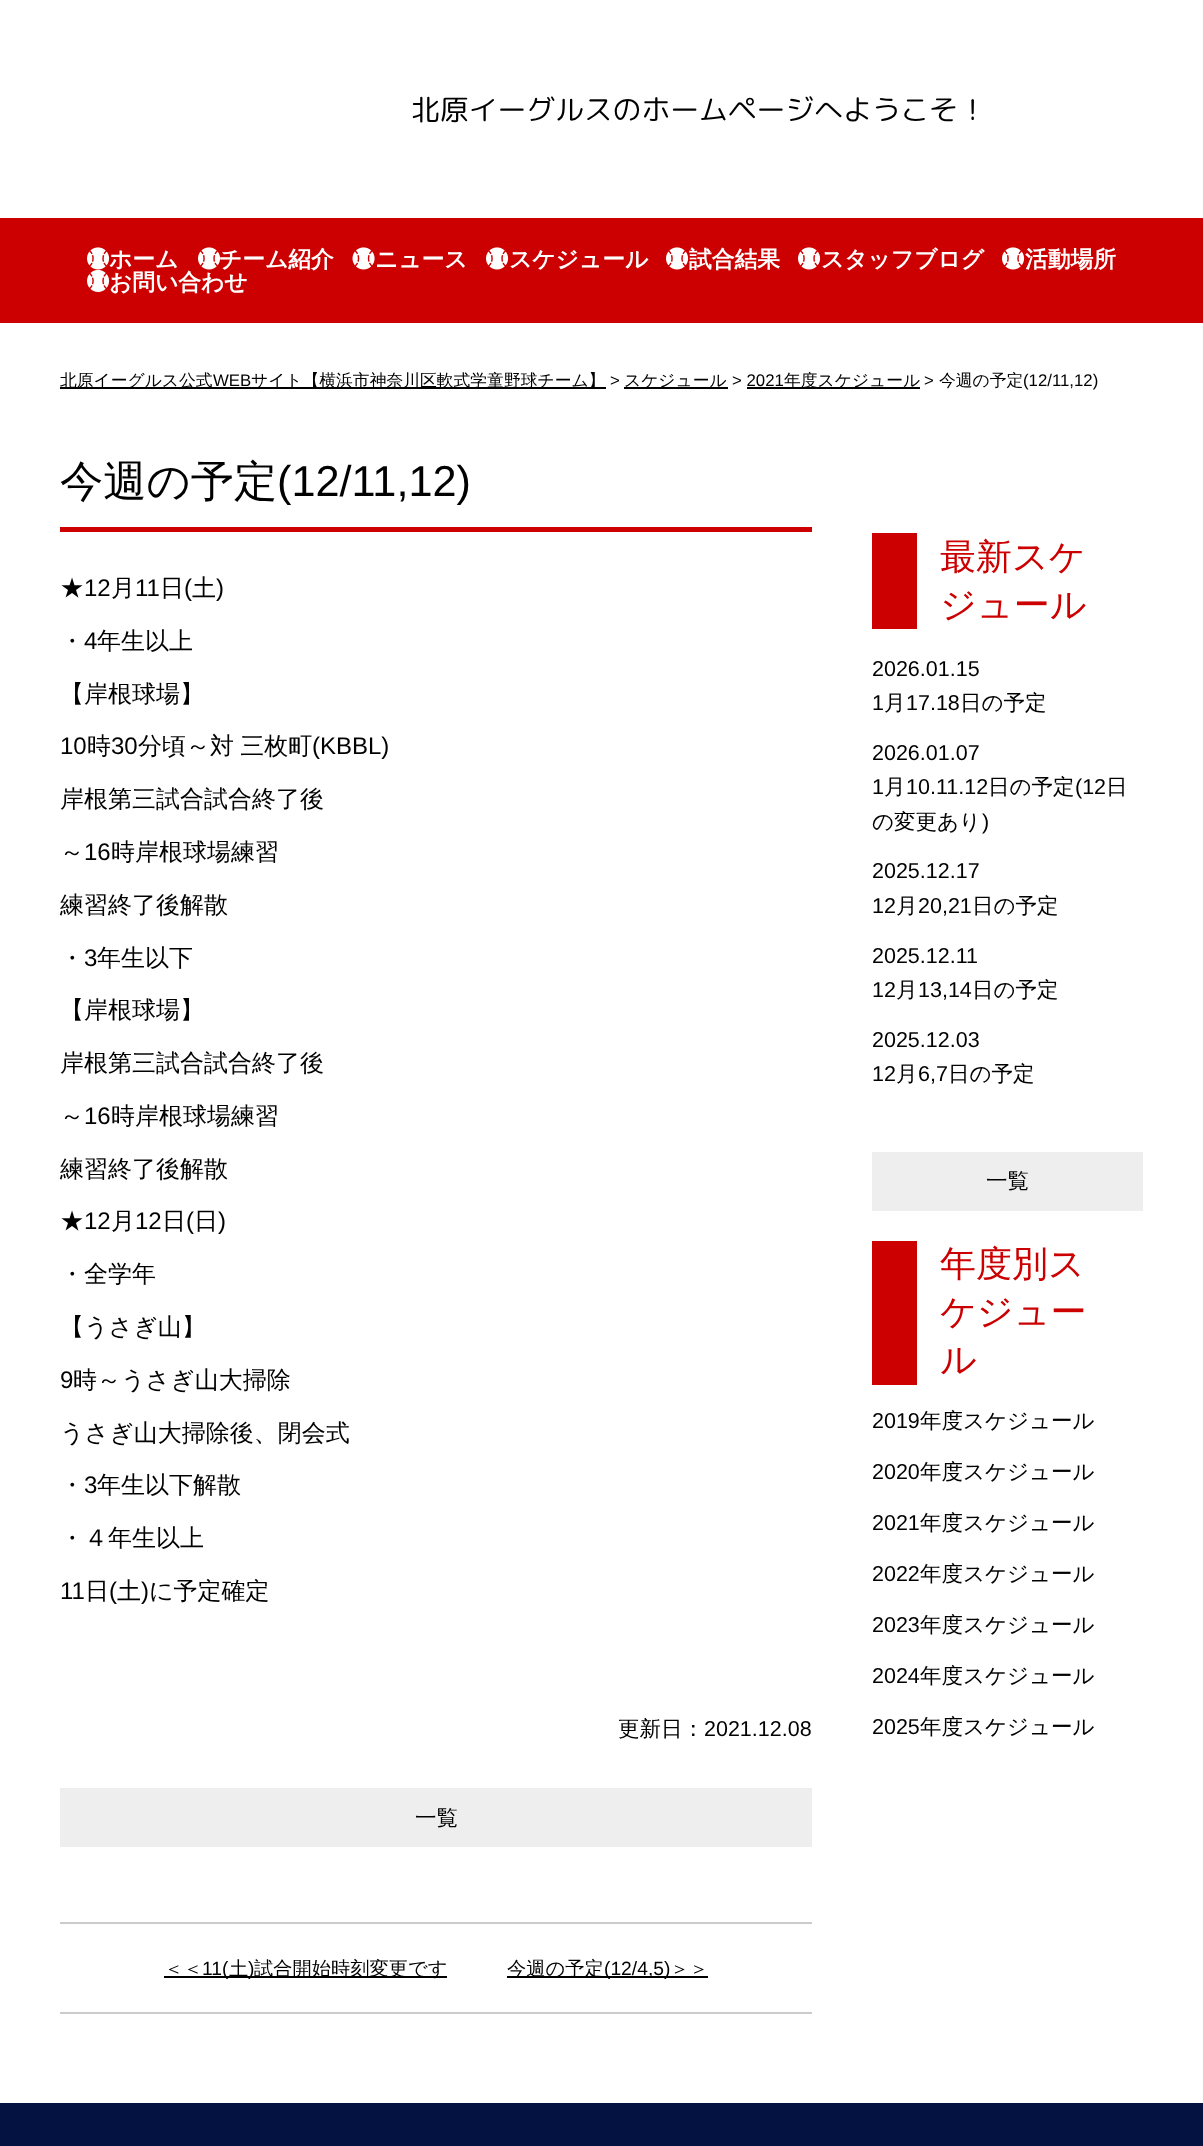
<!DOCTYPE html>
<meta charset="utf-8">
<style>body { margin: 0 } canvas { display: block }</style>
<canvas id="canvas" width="1203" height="2146"></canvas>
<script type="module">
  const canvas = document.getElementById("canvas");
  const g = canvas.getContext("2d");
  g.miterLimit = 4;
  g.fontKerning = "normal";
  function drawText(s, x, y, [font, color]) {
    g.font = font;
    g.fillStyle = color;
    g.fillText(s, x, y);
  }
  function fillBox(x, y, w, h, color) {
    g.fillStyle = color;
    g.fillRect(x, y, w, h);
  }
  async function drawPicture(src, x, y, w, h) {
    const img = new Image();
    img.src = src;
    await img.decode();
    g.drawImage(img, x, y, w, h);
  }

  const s1 = ["28.8px 'Rounded Mplus 1c'", "#000000"];
  const s2 = ["bold 22.75px WenQuanYi Zen Hei", "#FFFFFF"];
  const s3 = ["500 16.8px WenQuanYi Zen Hei", "#000000"];
  const s4 = ["16.8px Liberation Sans", "#000000"];
  const s5 = ["500 43.25px WenQuanYi Zen Hei", "#000000"];
  const s6 = ["43.25px Liberation Sans", "#000000"];
  const s7 = ["500 24px WenQuanYi Zen Hei", "#000000"];
  const s8 = ["24px Liberation Sans", "#000000"];
  const s9 = ["500 21.5px WenQuanYi Zen Hei", "#000000"];
  const s10 = ["21.5px Liberation Sans", "#000000"];
  const s11 = ["500 19.25px WenQuanYi Zen Hei", "#000000"];
  const s12 = ["19.25px Liberation Sans", "#000000"];
  const s13 = ["500 36px WenQuanYi Zen Hei", "#CC0000"];

  fillBox(0, 0, 1203, 2146, "#FFFFFF");
  drawText("北原イーグルスのホームページへようこそ！", 411, 120, s1);
  fillBox(0, 218, 1203, 105, "#CC0000");
  await drawPicture("pic1.png", 87, 247, 23, 23);
  drawText("ホーム", 109, 267, s2);
  await drawPicture("pic1.png", 198, 247, 23, 23);
  drawText("チーム紹介", 219, 267, s2);
  await drawPicture("pic2.png", 352, 247, 23, 23);
  drawText("ニュース", 375, 267, s2);
  await drawPicture("pic1.png", 486, 247, 23, 23);
  drawText("スケジュール", 509, 267, s2);
  await drawPicture("pic1.png", 666, 247, 23, 23);
  drawText("試合結果", 689, 267, s2);
  await drawPicture("pic1.png", 798, 247, 23, 23);
  drawText("スタッフブログ", 821, 267, s2);
  await drawPicture("pic1.png", 1002, 247, 23, 23);
  drawText("活動場所", 1025, 267, s2);
  await drawPicture("pic3.png", 87, 269, 23, 23);
  drawText("お問い合わせ", 109, 290, s2);
  fillBox(60, 387, 546, 2, "#000000");
  drawText("北原イーグルス公式", 60, 386, s3);
  drawText("WEB", 213, 386, s4);
  drawText("サイト【横浜市神奈川区軟式学童野球チーム】", 251, 386, s3);
  drawText(">", 610, 386, s4);
  fillBox(624, 387, 104, 2, "#000000");
  drawText("スケジュール", 624, 386, s3);
  drawText("> 2021", 732, 386, s4);
  fillBox(747, 387, 173, 2, "#000000");
  drawText("年度スケジュール", 784, 386, s3);
  drawText(">", 924, 386, s4);
  drawText("今週の予定", 939, 386, s3);
  drawText("(12/11,12)", 1023, 386, s4);
  fillBox(60, 527, 752, 5, "#CC0000");
  drawText("今週の予定", 60, 496, s5);
  drawText("(12/11,12)", 277, 496, s6);
  drawText("★", 60, 596, s7);
  drawText("12", 84, 596, s8);
  drawText("月", 111, 596, s7);
  drawText("11", 135, 596, s8);
  drawText("日", 160, 596, s7);
  drawText("(", 184, 596, s8);
  drawText("土", 192, 596, s7);
  drawText(")", 216, 596, s8);
  drawText("・", 60, 649, s7);
  drawText("4", 84, 649, s8);
  drawText("年生以上", 97, 649, s7);
  drawText("【岸根球場】", 60, 702, s7);
  drawText("10", 60, 754, s8);
  drawText("時", 87, 754, s7);
  drawText("30", 111, 754, s8);
  g.wordSpacing = "-1px";
  drawText("分頃～対 三枚町", 138, 754, s7);
  g.wordSpacing = "0px";
  drawText("(KBBL)", 312, 754, s8);
  drawText("岸根第三試合試合終了後", 60, 807, s7);
  drawText("～", 60, 860, s7);
  drawText("16", 84, 860, s8);
  drawText("時岸根球場練習", 111, 860, s7);
  drawText("練習終了後解散", 60, 913, s7);
  drawText("・", 60, 966, s7);
  drawText("3", 84, 966, s8);
  drawText("年生以下", 97, 966, s7);
  drawText("【岸根球場】", 60, 1018, s7);
  drawText("岸根第三試合試合終了後", 60, 1071, s7);
  drawText("～", 60, 1124, s7);
  drawText("16", 84, 1124, s8);
  drawText("時岸根球場練習", 111, 1124, s7);
  drawText("練習終了後解散", 60, 1177, s7);
  drawText("★", 60, 1229, s7);
  drawText("12", 84, 1229, s8);
  drawText("月", 111, 1229, s7);
  drawText("12", 135, 1229, s8);
  drawText("日", 162, 1229, s7);
  drawText("(", 186, 1229, s8);
  drawText("日", 194, 1229, s7);
  drawText(")", 218, 1229, s8);
  drawText("・全学年", 60, 1282, s7);
  drawText("【うさぎ山】", 60, 1335, s7);
  drawText("9", 60, 1388, s8);
  drawText("時～うさぎ山大掃除", 73, 1388, s7);
  drawText("うさぎ山大掃除後、閉会式", 60, 1441, s7);
  drawText("・", 60, 1493, s7);
  drawText("3", 84, 1493, s8);
  drawText("年生以下解散", 97, 1493, s7);
  drawText("・４年生以上", 60, 1546, s7);
  drawText("11", 60, 1599, s8);
  drawText("日", 85, 1599, s7);
  drawText("(", 109, 1599, s8);
  drawText("土", 117, 1599, s7);
  drawText(")", 141, 1599, s8);
  drawText("に予定確定", 149, 1599, s7);
  drawText("更新日：", 618, 1736, s9);
  drawText("2021.12.08", 704, 1736, s10);
  fillBox(60, 1788, 752, 59, "#EEEEEE");
  drawText("一覧", 415, 1825, s9);
  fillBox(60, 1922, 752, 2, "#CCCCCC");
  fillBox(60, 2012, 752, 2, "#CCCCCC");
  drawText("＜＜", 164, 1975, s11);
  fillBox(164, 1976, 283, 2, "#000000");
  drawText("11(", 202, 1975, s12);
  drawText("土", 229, 1975, s11);
  drawText(")", 248, 1975, s12);
  drawText("試合開始時刻変更です", 254, 1975, s11);
  fillBox(507, 1976, 201, 2, "#000000");
  drawText("今週の予定", 507, 1975, s11);
  drawText("(12/4,5)", 604, 1975, s12);
  drawText("＞＞", 670, 1975, s11);
  fillBox(872, 533, 45, 96, "#CC0000");
  drawText("最新スケ", 940, 569, s13);
  drawText("ジュール", 940, 617, s13);
  drawText("2026.01.15", 872, 676, s10);
  drawText("1", 872, 710, s10);
  drawText("月", 884, 710, s9);
  drawText("17.18", 906, 710, s10);
  drawText("日の予定", 960, 710, s9);
  drawText("2026.01.07", 872, 760, s10);
  drawText("1", 872, 794, s10);
  drawText("月", 884, 794, s9);
  drawText("10.11.12", 906, 794, s10);
  drawText("日の予定", 988, 794, s9);
  drawText("(12", 1075, 794, s10);
  drawText("日", 1106, 794, s9);
  drawText("の変更あり", 872, 829, s9);
  drawText(")", 982, 829, s10);
  drawText("2025.12.17", 872, 878, s10);
  drawText("12", 872, 913, s10);
  drawText("月", 896, 913, s9);
  drawText("20,21", 918, 913, s10);
  drawText("日の予定", 972, 913, s9);
  drawText("2025.12.11", 872, 963, s10);
  drawText("12", 872, 997, s10);
  drawText("月", 896, 997, s9);
  drawText("13,14", 918, 997, s10);
  drawText("日の予定", 972, 997, s9);
  drawText("2025.12.03", 872, 1047, s10);
  drawText("12", 872, 1081, s10);
  drawText("月", 896, 1081, s9);
  drawText("6,7", 918, 1081, s10);
  drawText("日の予定", 948, 1081, s9);
  fillBox(872, 1152, 271, 59, "#EEEEEE");
  drawText("一覧", 986, 1188, s9);
  fillBox(872, 1241, 45, 144, "#CC0000");
  drawText("年度別ス", 940, 1276, s13);
  drawText("ケジュー", 940, 1324, s13);
  drawText("ル", 940, 1372, s13);
  drawText("2019", 872, 1428, s10);
  drawText("年度スケジュール", 920, 1428, s9);
  drawText("2020", 872, 1479, s10);
  drawText("年度スケジュール", 920, 1479, s9);
  drawText("2021", 872, 1530, s10);
  drawText("年度スケジュール", 920, 1530, s9);
  drawText("2022", 872, 1581, s10);
  drawText("年度スケジュール", 920, 1581, s9);
  drawText("2023", 872, 1632, s10);
  drawText("年度スケジュール", 920, 1632, s9);
  drawText("2024", 872, 1683, s10);
  drawText("年度スケジュール", 920, 1683, s9);
  drawText("2025", 872, 1734, s10);
  drawText("年度スケジュール", 920, 1734, s9);
  fillBox(0, 2103, 1203, 43, "#041241");
</script>
